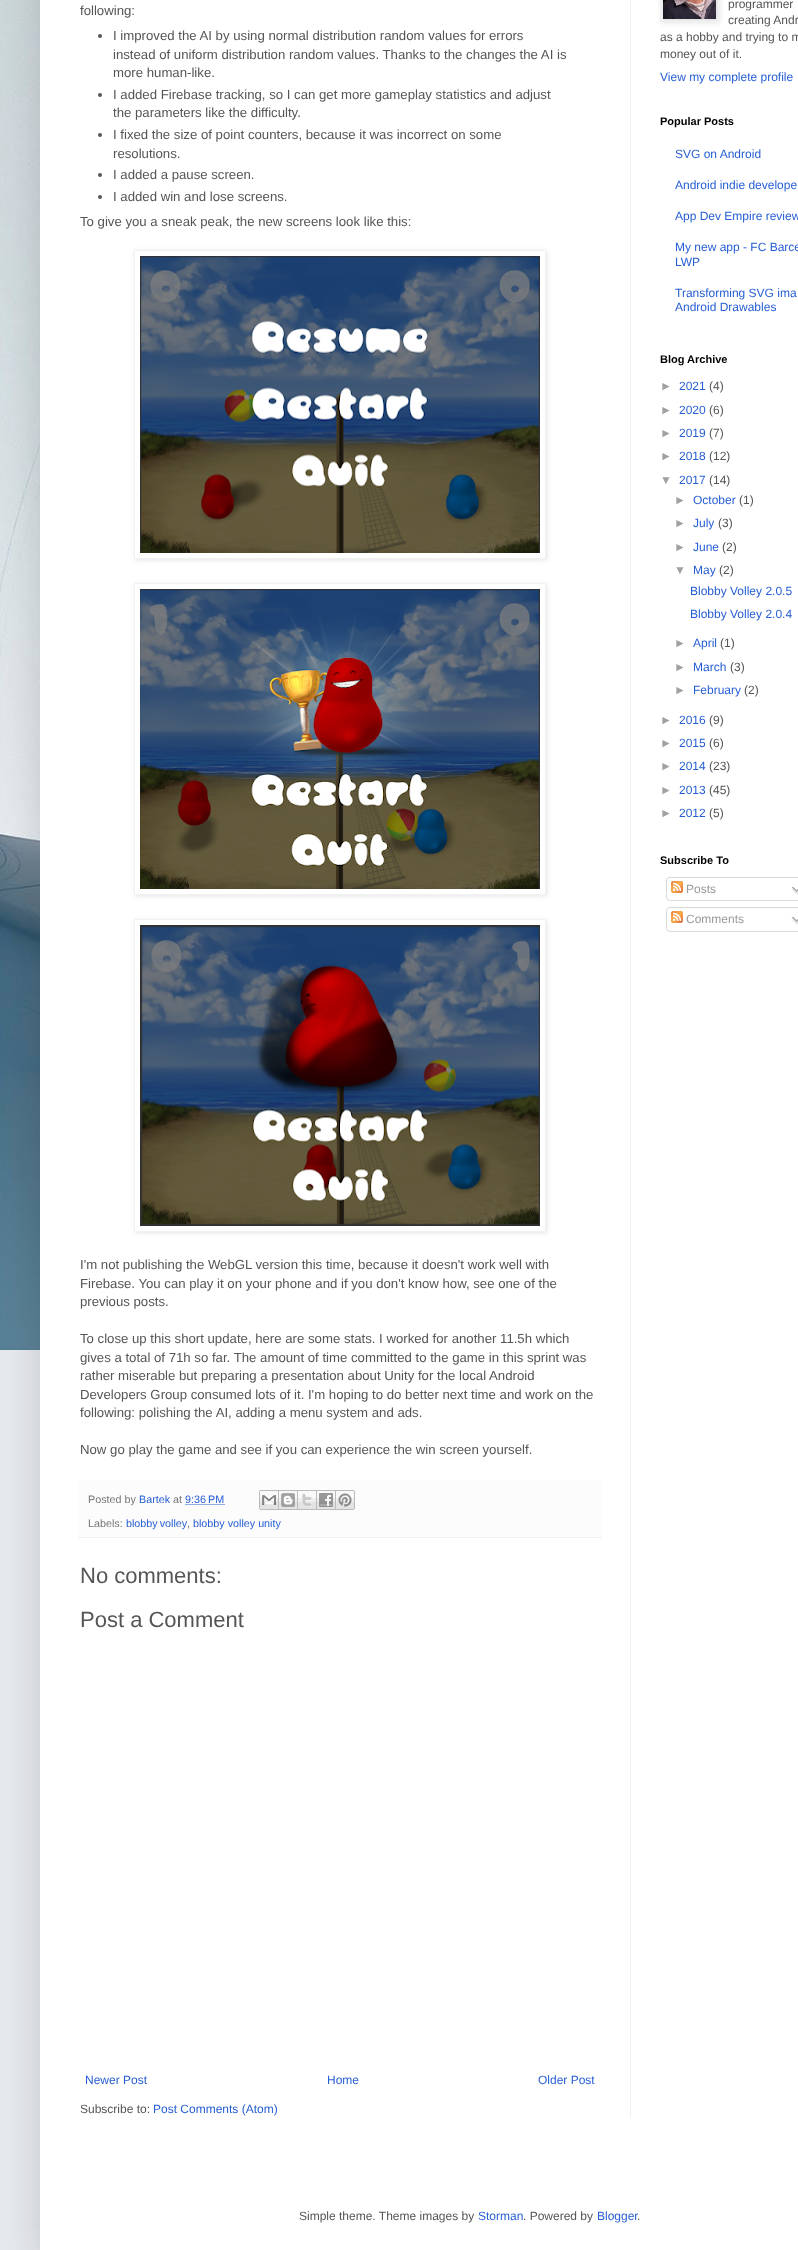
<!DOCTYPE html>
<meta charset="utf-8">
<style>body { margin: 0 } canvas { display: block }</style>
<canvas id="canvas" width="798" height="2250"></canvas>
<script type="module">
  const canvas = document.getElementById("canvas");
  const g = canvas.getContext("2d");
  g.miterLimit = 4;
  g.fontKerning = "normal";
  function drawText(s, x, y, [font, color]) {
    g.font = font;
    g.fillStyle = color;
    g.fillText(s, x, y);
  }
  function fillBox(x, y, w, h, color) {
    g.fillStyle = color;
    g.fillRect(x, y, w, h);
  }
  async function drawPicture(src, x, y, w, h) {
    const img = new Image();
    img.src = src;
    await img.decode();
    g.drawImage(img, x, y, w, h);
  }

  const s1 = ["13.2px Liberation Sans", "#555555"];
  const s2 = ["10.75px Liberation Sans", "#767676"];
  const s3 = ["10.75px Liberation Sans", "#265ED3"];
  const s4 = ["22px Liberation Sans", "#555555"];
  const s5 = ["12px Liberation Sans", "#265ED3"];
  const s6 = ["12px Liberation Sans", "#555555"];
  const s7 = ["bold 11px Liberation Sans", "#000000"];
  const s8 = ["12px Liberation Sans", "#A1A1A1"];
  const s9 = ["12px Liberation Sans", "#999999"];

  fillBox(0, 0, 798, 2250, "#E6E9EE");
  await drawPicture("pic1.png", 0, 0, 40, 1350);
  g.fillStyle = "rgba(0, 0, 0, 0.15)";
  g.filter = "blur(20px)";
  g.beginPath();
  g.rect(40, -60, 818, 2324);
  g.fill();
  g.filter = "none";
  fillBox(40, 0, 758, 2250, "#FFFFFF");
  fillBox(630, 0, 1, 2118, "#F1F1F1");
  drawText("following:", 80, 15, s1);
  g.beginPath();
  g.arc(100, 36, 2, 0, Math.PI * 2);
  g.fill();
  drawText("I improved the AI by using normal distribution random values for errors", 113, 40, s1);
  drawText("instead of uniform distribution random values. Thanks to the changes the AI is", 113, 59, s1);
  drawText("more human-like.", 113, 77, s1);
  g.beginPath();
  g.arc(100, 95, 2, 0, Math.PI * 2);
  g.fill();
  drawText("I added Firebase tracking, so I can get more gameplay statistics and adjust", 113, 99, s1);
  drawText("the parameters like the difficulty.", 113, 117, s1);
  g.beginPath();
  g.arc(100, 135, 2, 0, Math.PI * 2);
  g.fill();
  drawText("I fixed the size of point counters, because it was incorrect on some", 113, 139, s1);
  drawText("resolutions.", 113, 158, s1);
  g.beginPath();
  g.arc(100, 175, 2, 0, Math.PI * 2);
  g.fill();
  drawText("I added a pause screen.", 113, 179, s1);
  g.beginPath();
  g.arc(100, 197, 2, 0, Math.PI * 2);
  g.fill();
  drawText("I added win and lose screens.", 113, 201, s1);
  drawText("To give you a sneak peak, the new screens look like this:", 80, 226, s1);
  g.save();
  g.beginPath();
  g.moveTo(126, 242);
  g.lineTo(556, 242);
  g.lineTo(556, 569);
  g.lineTo(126, 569);
  g.closePath();
  g.moveTo(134, 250);
  g.lineTo(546, 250);
  g.lineTo(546, 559);
  g.lineTo(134, 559);
  g.closePath();
  g.clip("evenodd");
  g.fillStyle = "rgba(0, 0, 0, 0.1)";
  g.filter = "blur(2.5px)";
  g.beginPath();
  g.rect(135, 251, 412, 309);
  g.fill();
  g.filter = "none";
  g.restore();
  g.strokeStyle = "#F1F1F1";
  g.strokeRect(134.5, 250.5, 411, 308);
  await drawPicture("pic2.png", 140, 256, 400, 297);
  g.save();
  g.beginPath();
  g.moveTo(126, 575);
  g.lineTo(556, 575);
  g.lineTo(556, 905);
  g.lineTo(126, 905);
  g.closePath();
  g.moveTo(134, 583);
  g.lineTo(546, 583);
  g.lineTo(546, 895);
  g.lineTo(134, 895);
  g.closePath();
  g.clip("evenodd");
  g.fillStyle = "rgba(0, 0, 0, 0.1)";
  g.filter = "blur(2.5px)";
  g.beginPath();
  g.rect(135, 584, 412, 312);
  g.fill();
  g.filter = "none";
  g.restore();
  g.strokeRect(134.5, 583.5, 411, 311);
  await drawPicture("pic3.png", 140, 589, 400, 300);
  g.save();
  g.beginPath();
  g.moveTo(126, 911);
  g.lineTo(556, 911);
  g.lineTo(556, 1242);
  g.lineTo(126, 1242);
  g.closePath();
  g.moveTo(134, 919);
  g.lineTo(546, 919);
  g.lineTo(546, 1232);
  g.lineTo(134, 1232);
  g.closePath();
  g.clip("evenodd");
  g.fillStyle = "rgba(0, 0, 0, 0.1)";
  g.filter = "blur(2.5px)";
  g.beginPath();
  g.rect(135, 920, 412, 313);
  g.fill();
  g.filter = "none";
  g.restore();
  g.strokeRect(134.5, 919.5, 411, 312);
  await drawPicture("pic4.png", 140, 925, 400, 301);
  drawText("I'm not publishing the WebGL version this time, because it doesn't work well with", 80, 1269, s1);
  drawText("Firebase. You can play it on your phone and if you don't know how, see one of the", 80, 1288, s1);
  drawText("previous posts.", 80, 1306, s1);
  drawText("To close up this short update, here are some stats. I worked for another 11.5h which", 80, 1343, s1);
  drawText("gives a total of 71h so far. The amount of time committed to the game in this sprint was", 80, 1362, s1);
  drawText("rather miserable but preparing a presentation about Unity for the local Android", 80, 1380, s1);
  drawText("Developers Group consumed lots of it. I'm hoping to do better next time and work on the", 80, 1399, s1);
  drawText("following: polishing the AI, adding a menu system and ads.", 80, 1417, s1);
  drawText("Now go play the game and see if you can experience the win screen yourself.", 80, 1454, s1);
  fillBox(78, 1480, 524, 57, "#FCFCFC");
  fillBox(78, 1537, 524, 1, "#F1F1F1");
  drawText("Posted by", 88, 1503, s2);
  drawText("Bartek", 139, 1503, s3);
  drawText("at", 173, 1503, s2);
  drawText("9:36 PM", 185, 1503, s3);
  g.beginPath();
  g.moveTo(185.5, 1504.5);
  g.lineTo(224.5, 1504.5);
  g.strokeStyle = "#265ED3";
  g.setLineDash([1, 1]);
  g.stroke();
  await drawPicture("pic5.png", 259, 1490, 20, 20);
  await drawPicture("pic6.png", 279, 1490, 19, 20);
  await drawPicture("pic7.png", 298, 1490, 19, 20);
  await drawPicture("pic8.png", 317, 1490, 19, 20);
  await drawPicture("pic9.png", 336, 1490, 19, 20);
  drawText("Labels:", 88, 1527, s2);
  g.wordSpacing = "-1px";
  drawText("blobby volley", 126, 1527, s3);
  g.wordSpacing = "0px";
  drawText(",", 187, 1527, s2);
  drawText("blobby volley unity", 193, 1527, s3);
  drawText("No comments:", 80, 1583, s4);
  drawText("Post a Comment", 80, 1627, s4);
  drawText("Newer Post", 85, 2084, s5);
  drawText("Home", 327, 2084, s5);
  drawText("Older Post", 538, 2084, s5);
  drawText("Subscribe to:", 80, 2113, s6);
  drawText("Post Comments (Atom)", 153, 2113, s5);
  g.fillStyle = "rgba(0, 0, 0, 0.1)";
  g.filter = "blur(2.5px)";
  g.beginPath();
  g.rect(661, -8, 59, 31);
  g.fill();
  g.filter = "none";
  g.strokeStyle = "#F1F1F1";
  g.setLineDash([]);
  g.strokeRect(660.5, -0.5, 58, 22);
  await drawPicture("pic10.png", 663, 0, 53, 19);
  drawText("programmer", 728, 8, s6);
  drawText("creating Andr", 728, 24, s6);
  drawText("as a hobby and trying to m", 660, 41, s6);
  drawText("money out of it.", 660, 58, s6);
  drawText("View my complete profile", 660, 81, s5);
  drawText("Popular Posts", 660, 125, s7);
  drawText("SVG on Android", 675, 158, s5);
  drawText("Android indie develope", 675, 189, s5);
  drawText("App Dev Empire review", 675, 220, s5);
  drawText("My new app - FC Barce", 675, 251, s5);
  drawText("LWP", 675, 266, s5);
  drawText("Transforming SVG ima", 675, 297, s5);
  drawText("Android Drawables", 675, 311, s5);
  drawText("Blog Archive", 660, 363, s7);
  drawText("►", 660, 390, s8);
  drawText("2021", 679, 390, s5);
  drawText("(4)", 709, 390, s6);
  drawText("►", 660, 414, s8);
  drawText("2020", 679, 414, s5);
  drawText("(6)", 709, 414, s6);
  drawText("►", 660, 437, s8);
  drawText("2019", 679, 437, s5);
  drawText("(7)", 709, 437, s6);
  drawText("►", 660, 460, s8);
  drawText("2018", 679, 460, s5);
  drawText("(12)", 709, 460, s6);
  drawText("▼", 660, 484, s8);
  drawText("2017", 679, 484, s5);
  drawText("(14)", 709, 484, s6);
  drawText("►", 674, 504, s8);
  drawText("October", 693, 504, s5);
  drawText("(1)", 739, 504, s6);
  drawText("►", 674, 527, s8);
  drawText("July", 693, 527, s5);
  drawText("(3)", 718, 527, s6);
  drawText("►", 674, 551, s8);
  drawText("June", 693, 551, s5);
  drawText("(2)", 722, 551, s6);
  drawText("▼", 674, 574, s8);
  drawText("May", 693, 574, s5);
  drawText("(2)", 719, 574, s6);
  drawText("Blobby Volley 2.0.5", 690, 595, s5);
  drawText("Blobby Volley 2.0.4", 690, 618, s5);
  drawText("►", 674, 647, s8);
  drawText("April", 693, 647, s5);
  drawText("(1)", 720, 647, s6);
  drawText("►", 674, 671, s8);
  drawText("March", 693, 671, s5);
  drawText("(3)", 730, 671, s6);
  drawText("►", 674, 694, s8);
  drawText("February", 693, 694, s5);
  drawText("(2)", 744, 694, s6);
  drawText("►", 660, 724, s8);
  drawText("2016", 679, 724, s5);
  drawText("(9)", 709, 724, s6);
  drawText("►", 660, 747, s8);
  drawText("2015", 679, 747, s5);
  drawText("(6)", 709, 747, s6);
  drawText("►", 660, 770, s8);
  drawText("2014", 679, 770, s5);
  drawText("(23)", 709, 770, s6);
  drawText("►", 660, 794, s8);
  drawText("2013", 679, 794, s5);
  drawText("(45)", 709, 794, s6);
  drawText("►", 660, 817, s8);
  drawText("2012", 679, 817, s5);
  drawText("(5)", 709, 817, s6);
  drawText("Subscribe To", 660, 864, s7);
  await drawPicture("pic11.png", 666, 877, 132, 21);
  await drawPicture("pic12.png", 671, 881, 12, 12);
  drawText("Posts", 686, 893, s9);
  await drawPicture("pic13.png", 791, 886, 7, 9);
  await drawPicture("pic14.png", 666, 898, 132, 3);
  await drawPicture("pic15.png", 666, 907, 132, 22);
  await drawPicture("pic12.png", 671, 911, 12, 12);
  drawText("Comments", 686, 923, s9);
  await drawPicture("pic13.png", 791, 916, 7, 9);
  await drawPicture("pic14.png", 666, 929, 132, 3);
  drawText("Simple theme. Theme images by", 299, 2220, s6);
  drawText("Storman", 478, 2220, s5);
  drawText(". Powered by", 523, 2220, s6);
  drawText("Blogger", 597, 2220, s5);
  drawText(".", 637, 2220, s6);
</script>
